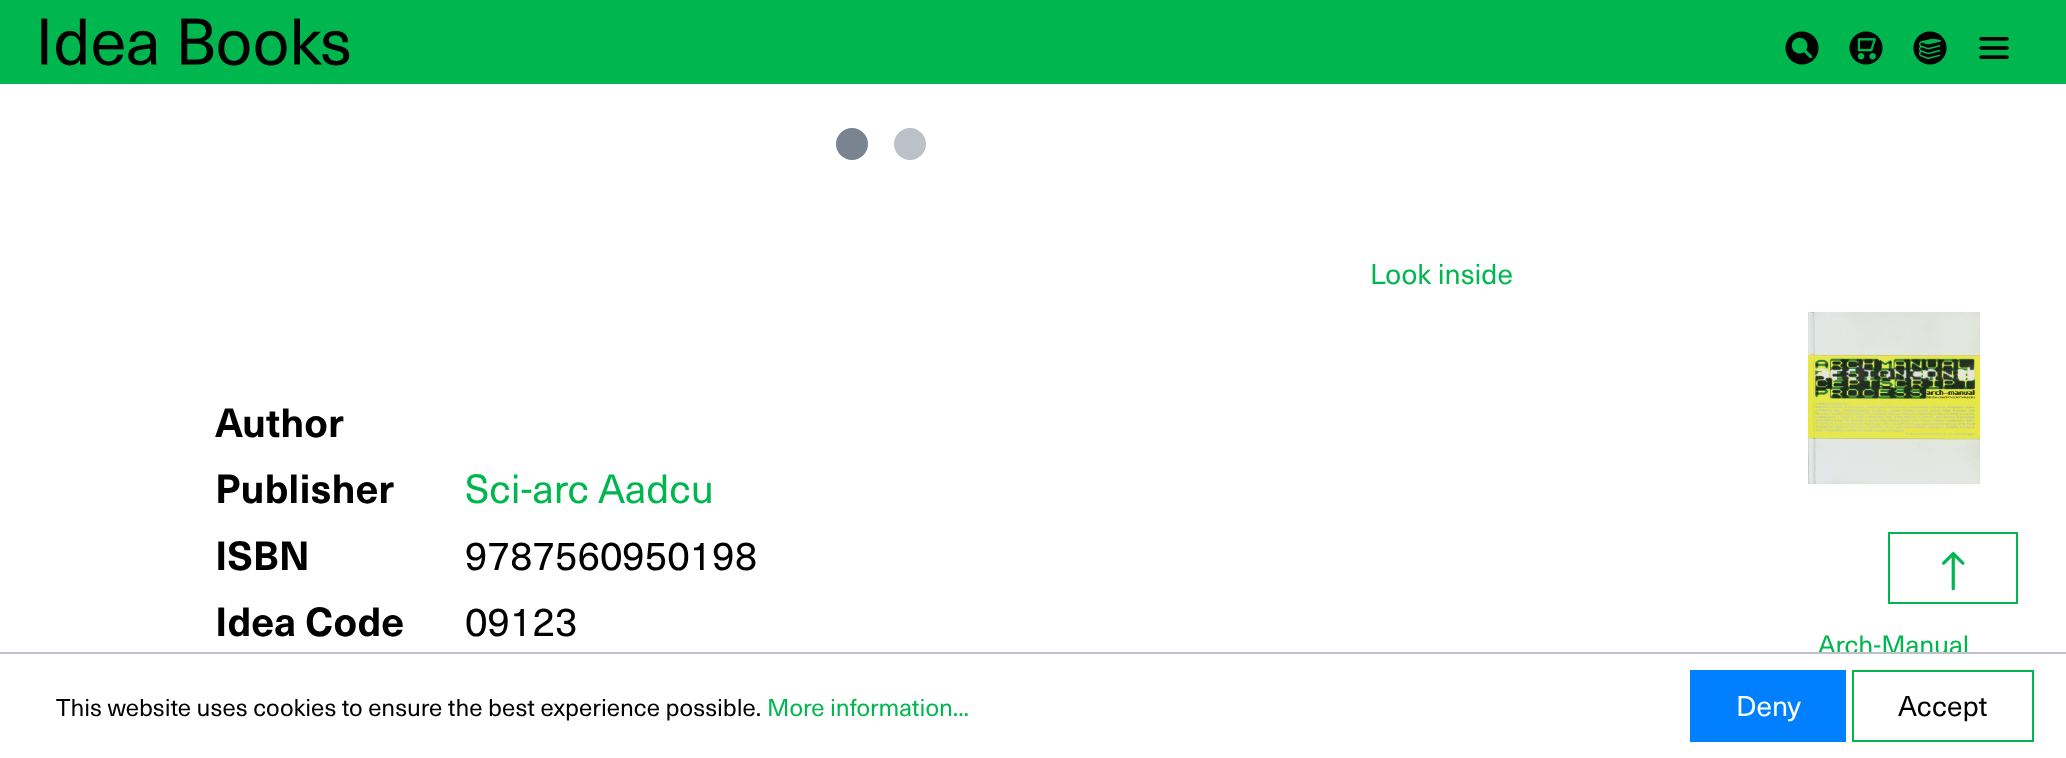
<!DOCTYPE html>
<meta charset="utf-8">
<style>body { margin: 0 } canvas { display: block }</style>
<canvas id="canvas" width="2066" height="758"></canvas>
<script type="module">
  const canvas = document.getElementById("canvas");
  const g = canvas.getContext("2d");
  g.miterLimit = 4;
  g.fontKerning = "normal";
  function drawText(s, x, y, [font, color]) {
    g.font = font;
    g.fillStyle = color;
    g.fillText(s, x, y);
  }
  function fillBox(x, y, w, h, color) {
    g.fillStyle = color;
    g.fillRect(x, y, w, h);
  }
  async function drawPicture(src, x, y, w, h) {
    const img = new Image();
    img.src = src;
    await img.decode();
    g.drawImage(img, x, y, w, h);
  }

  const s1 = ["28px 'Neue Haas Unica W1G'", "#00B74F"];
  const s2 = ["bold 40px 'Neue Haas Unica W1G'", "#000000"];
  const s3 = ["40px 'Neue Haas Unica W1G'", "#00B74F"];
  const s4 = ["40px 'Neue Haas Unica W1G'", "#000000"];
  const s5 = ["26px 'Neue Haas Unica W1G'", "#00B74F"];
  const s6 = ["24px 'Neue Haas Unica W1G'", "#000000"];
  const s7 = ["24px 'Neue Haas Unica W1G'", "#00B74F"];
  const s8 = ["28px 'Neue Haas Unica W1G'", "#FFFFFF"];
  const s9 = ["28px 'Neue Haas Unica W1G'", "#000000"];

  fillBox(0, 0, 2066, 758, "#FFFFFF");
  fillBox(0, 0, 2066, 84, "#00B74F");
  await drawPicture("pic1.png", 41, 18, 309, 48);
  await drawPicture("pic2.png", 1785, 31, 34, 34);
  await drawPicture("pic3.png", 1849, 31, 34, 34);
  await drawPicture("pic4.png", 1913, 31, 34, 34);
  await drawPicture("pic5.png", 1979, 37, 30, 22);
  g.fillStyle = "#798490";
  g.beginPath();
  g.arc(852, 144, 16, 0, Math.PI * 2);
  g.fill();
  g.fillStyle = "#BCC1C7";
  g.beginPath();
  g.arc(910, 144, 16, 0, Math.PI * 2);
  g.fill();
  drawText("Look inside", 1370, 284, s1);
  drawText("Author", 215, 437, s2);
  drawText("Publisher", 215, 503, s2);
  drawText("Sci-arc Aadcu", 465, 503, s3);
  drawText("ISBN", 215, 570, s2);
  drawText("9787560950198", 465, 570, s4);
  drawText("Idea Code", 215, 636, s2);
  drawText("09123", 465, 636, s4);
  await drawPicture("pic6.png", 1808, 312, 172, 172);
  drawText("Arch-Manual", 1818, 654, s5);
  g.strokeStyle = "#00B74F";
  g.lineWidth = 2;
  g.strokeRect(1889, 533, 128, 70);
  await drawPicture("pic7.png", 1942, 552, 23, 38);
  fillBox(1850, 654, 107, 1, "#FFFFFF");
  fillBox(0, 652, 2066, 2, "#BCC1C7");
  drawText("This website uses cookies to ensure the best experience possible.", 56, 716, s6);
  drawText("More information...", 767, 716, s7);
  fillBox(1690, 670, 156, 72, "#0080FF");
  drawText("Deny", 1736, 716, s8);
  g.strokeRect(1853, 671, 180, 70);
  drawText("Accept", 1898, 716, s9);
</script>
